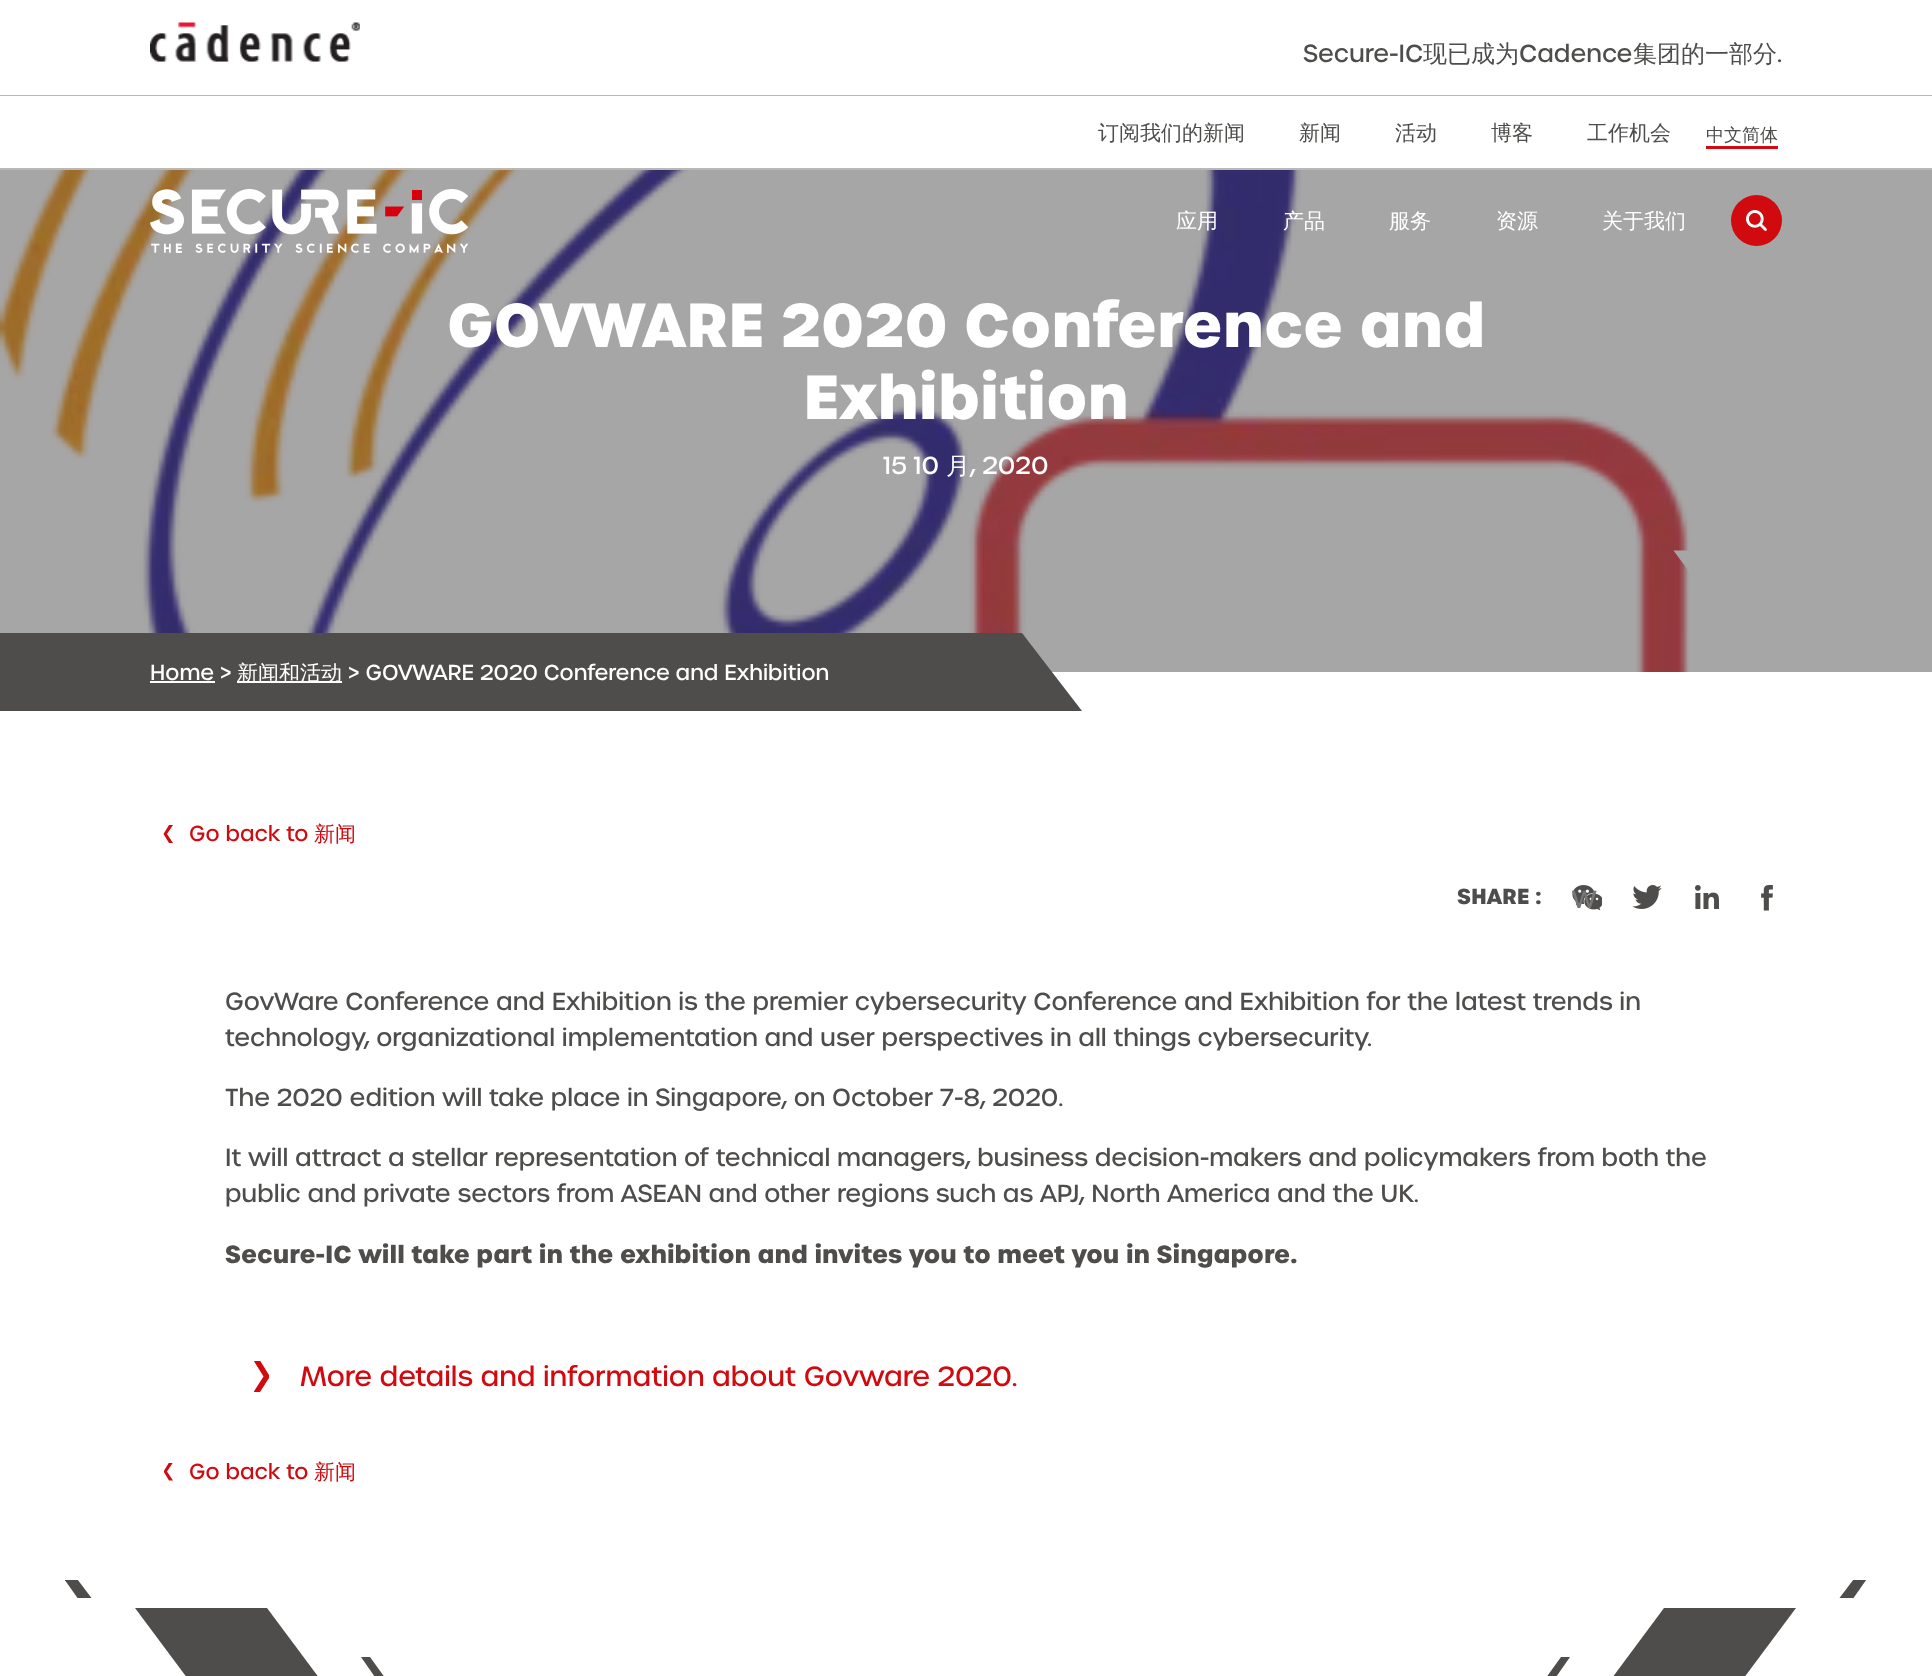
<!DOCTYPE html>
<meta charset="utf-8">
<style>body { margin: 0 } canvas { display: block }</style>
<canvas id="canvas" width="1932" height="1676"></canvas>
<script type="module">
  const canvas = document.getElementById("canvas");
  const g = canvas.getContext("2d");
  g.miterLimit = 4;
  g.fontKerning = "normal";
  function drawText(s, x, y, [font, color]) {
    g.font = font;
    g.fillStyle = color;
    g.fillText(s, x, y);
  }
  function fillBox(x, y, w, h, color) {
    g.fillStyle = color;
    g.fillRect(x, y, w, h);
  }
  async function drawPicture(src, x, y, w, h) {
    const img = new Image();
    img.src = src;
    await img.decode();
    g.drawImage(img, x, y, w, h);
  }

  const s1 = ["500 24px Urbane", "#4E4D4C"];
  const s2 = ["500 24px WenQuanYi Zen Hei", "#4E4D4C"];
  const s3 = ["500 21px WenQuanYi Zen Hei", "#4E4D4C"];
  const s4 = ["500 18px WenQuanYi Zen Hei", "#4E4D4C"];
  const s5 = ["500 21px WenQuanYi Zen Hei", "#FFFFFF"];
  const s6 = ["bold 60px Urbane", "#FFFFFF"];
  const s7 = ["500 24px Urbane", "#FFFFFF"];
  const s8 = ["500 24px WenQuanYi Zen Hei", "#FFFFFF"];
  const s9 = ["500 21px Urbane", "#FFFFFF"];
  const s10 = ["500 21px Urbane", "#D10A10"];
  const s11 = ["500 21px WenQuanYi Zen Hei", "#D10A10"];
  const s12 = ["bold 21px Urbane", "#4E4D4C"];
  const s13 = ["500 24px Urbane", "#777676"];
  const s14 = ["bold 24px Urbane", "#4E4D4C"];
  const s15 = ["500 27px Urbane", "#D10A10"];

  fillBox(0, 0, 1932, 1676, "#FFFFFF");
  fillBox(0, 170, 1932, 502, "#A7A6A6");
  fillBox(0, 95, 1932, 1, "rgba(78, 77, 76, 0.4)");
  await drawPicture("pic1.png", 150, 22, 210, 40);
  drawText("Secure-IC", 1303, 62, s1);
  drawText("现已成为", 1423, 62, s2);
  drawText("Cadence", 1519, 62, s1);
  drawText("集团的一部分", 1633, 62, s2);
  drawText(".", 1777, 62, s1);
  fillBox(0, 168, 1932, 2, "#B8B8B7");
  drawText("订阅我们的新闻", 1098, 140, s3);
  drawText("新闻", 1299, 140, s3);
  drawText("活动", 1395, 140, s3);
  drawText("博客", 1491, 140, s3);
  drawText("工作机会", 1587, 140, s3);
  drawText("中文简体", 1706, 141, s4);
  fillBox(1706, 146, 72, 3, "#D10A10");
  await drawPicture("pic4.png", 0, 170, 1690, 502);
  await drawPicture("pic2.png", 150, 189, 318, 64);
  drawText("应用", 1176, 228, s5);
  drawText("产品", 1283, 228, s5);
  drawText("服务", 1389, 228, s5);
  drawText("资源", 1496, 228, s5);
  drawText("关于我们", 1602, 228, s5);
  g.fillStyle = "#D10A10";
  g.beginPath();
  g.arc(1756.5, 220.5, 25.5, 0, Math.PI * 2);
  g.fill();
  await drawPicture("pic3.png", 1746, 210, 21, 21);
  await drawPicture("pic5.png", 1673, 550, 17, 22);
  drawText("GOVWARE 2020 Conference and", 447, 347, s6);
  drawText("Exhibition", 803, 419, s6);
  drawText("15 10", 883, 474, s7);
  drawText("月", 946, 474, s8);
  drawText(", 2020", 970, 474, s7);
  g.fillStyle = "#4E4D4C";
  g.beginPath();
  g.moveTo(0, 633);
  g.lineTo(0, 711);
  g.lineTo(1082, 711);
  g.lineTo(1022, 633);
  g.closePath();
  g.fill();
  drawText("Home >", 150, 680, s9);
  fillBox(150, 681, 65, 2, "#FFFFFF");
  fillBox(237, 681, 105, 2, "#FFFFFF");
  drawText("新闻和活动", 237, 680, s5);
  drawText("> GOVWARE 2020 Conference and Exhibition", 348, 680, s9);
  g.fillStyle = "#D10A10";
  g.beginPath();
  g.moveTo(169, 843);
  g.lineTo(173, 843);
  g.lineTo(167, 834);
  g.lineTo(173, 825);
  g.lineTo(169, 825);
  g.lineTo(163.5, 834);
  g.closePath();
  g.fill();
  drawText("Go back to", 189, 841, s10);
  drawText("新闻", 314, 841, s11);
  drawText("SHARE :", 1457, 904, s12);
  await drawPicture("pic6.png", 1572, 885, 30, 26);
  drawText("W", 1572, 908, s13);
  await drawPicture("pic7.png", 1632, 885, 30, 24);
  await drawPicture("pic8.png", 1695, 885, 24, 24);
  await drawPicture("pic9.png", 1761, 885, 12, 26);
  drawText("GovWare Conference and Exhibition is the premier cybersecurity Conference and Exhibition for the latest trends in", 225, 1010, s1);
  drawText("technology, organizational implementation and user perspectives in all things cybersecurity.", 225, 1046, s1);
  drawText("The 2020 edition will take place in Singapore, on October 7-8, 2020.", 225, 1106, s1);
  drawText("It will attract a stellar representation of technical managers, business decision-makers and policymakers from both the", 225, 1166, s1);
  drawText("public and private sectors from ASEAN and other regions such as APJ, North America and the UK.", 225, 1202, s1);
  drawText("Secure-IC will take part in the exhibition and invites you to meet you in Singapore.", 225, 1263, s14);
  g.save();
  g.beginPath();
  g.rect(254, 1361, 15, 31);
  g.clip();
  g.fillStyle = "#D10A10";
  g.beginPath();
  g.moveTo(260, 1392);
  g.lineTo(253.5, 1392);
  g.lineTo(263.5, 1376.5);
  g.lineTo(253.5, 1360.5);
  g.lineTo(260, 1360.5);
  g.lineTo(270, 1376.5);
  g.closePath();
  g.fill();
  g.restore();
  drawText("More details and information about Govware 2020.", 300, 1386, s15);
  g.save();
  g.beginPath();
  g.rect(164, 1463, 9, 18);
  g.clip();
  g.beginPath();
  g.moveTo(169, 1480.5);
  g.lineTo(173, 1480.5);
  g.lineTo(167, 1471.5);
  g.lineTo(173, 1462.5);
  g.lineTo(169, 1462.5);
  g.lineTo(163.5, 1471.5);
  g.closePath();
  g.fill();
  g.restore();
  drawText("Go back to", 189, 1479, s10);
  drawText("新闻", 314, 1479, s11);
  g.fillStyle = "#4E4D4C";
  g.beginPath();
  g.moveTo(267, 1608);
  g.lineTo(135, 1608);
  g.lineTo(413, 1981);
  g.lineTo(545, 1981);
  g.closePath();
  g.fill();
  g.save();
  g.beginPath();
  g.rect(65, 1580, 480, 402);
  g.clip();
  g.beginPath();
  g.moveTo(77.5, 1598);
  g.lineTo(91.5, 1598);
  g.lineTo(77.5, 1579.5);
  g.lineTo(64.5, 1579.5);
  g.closePath();
  g.fill();
  g.restore();
  g.beginPath();
  g.moveTo(370, 1657);
  g.lineTo(361, 1657);
  g.lineTo(496, 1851);
  g.lineTo(510, 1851);
  g.closePath();
  g.fill();
  g.beginPath();
  g.moveTo(1664, 1608);
  g.lineTo(1796, 1608);
  g.lineTo(1518, 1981);
  g.lineTo(1387, 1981);
  g.closePath();
  g.fill();
  g.save();
  g.beginPath();
  g.rect(1388, 1580, 480, 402);
  g.clip();
  g.beginPath();
  g.moveTo(1853.5, 1598);
  g.lineTo(1839.5, 1598);
  g.lineTo(1853.5, 1579.5);
  g.lineTo(1866.5, 1579.5);
  g.closePath();
  g.fill();
  g.restore();
  g.beginPath();
  g.moveTo(1561, 1657);
  g.lineTo(1570, 1657);
  g.lineTo(1435, 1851);
  g.lineTo(1421, 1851);
  g.closePath();
  g.fill();
  g.fillStyle = "#D10A10";
  g.beginPath();
  g.moveTo(1860, 1590);
  g.lineTo(1859.5, 1590);
  g.lineTo(1860, 1589);
  g.closePath();
  g.fill();
</script>
